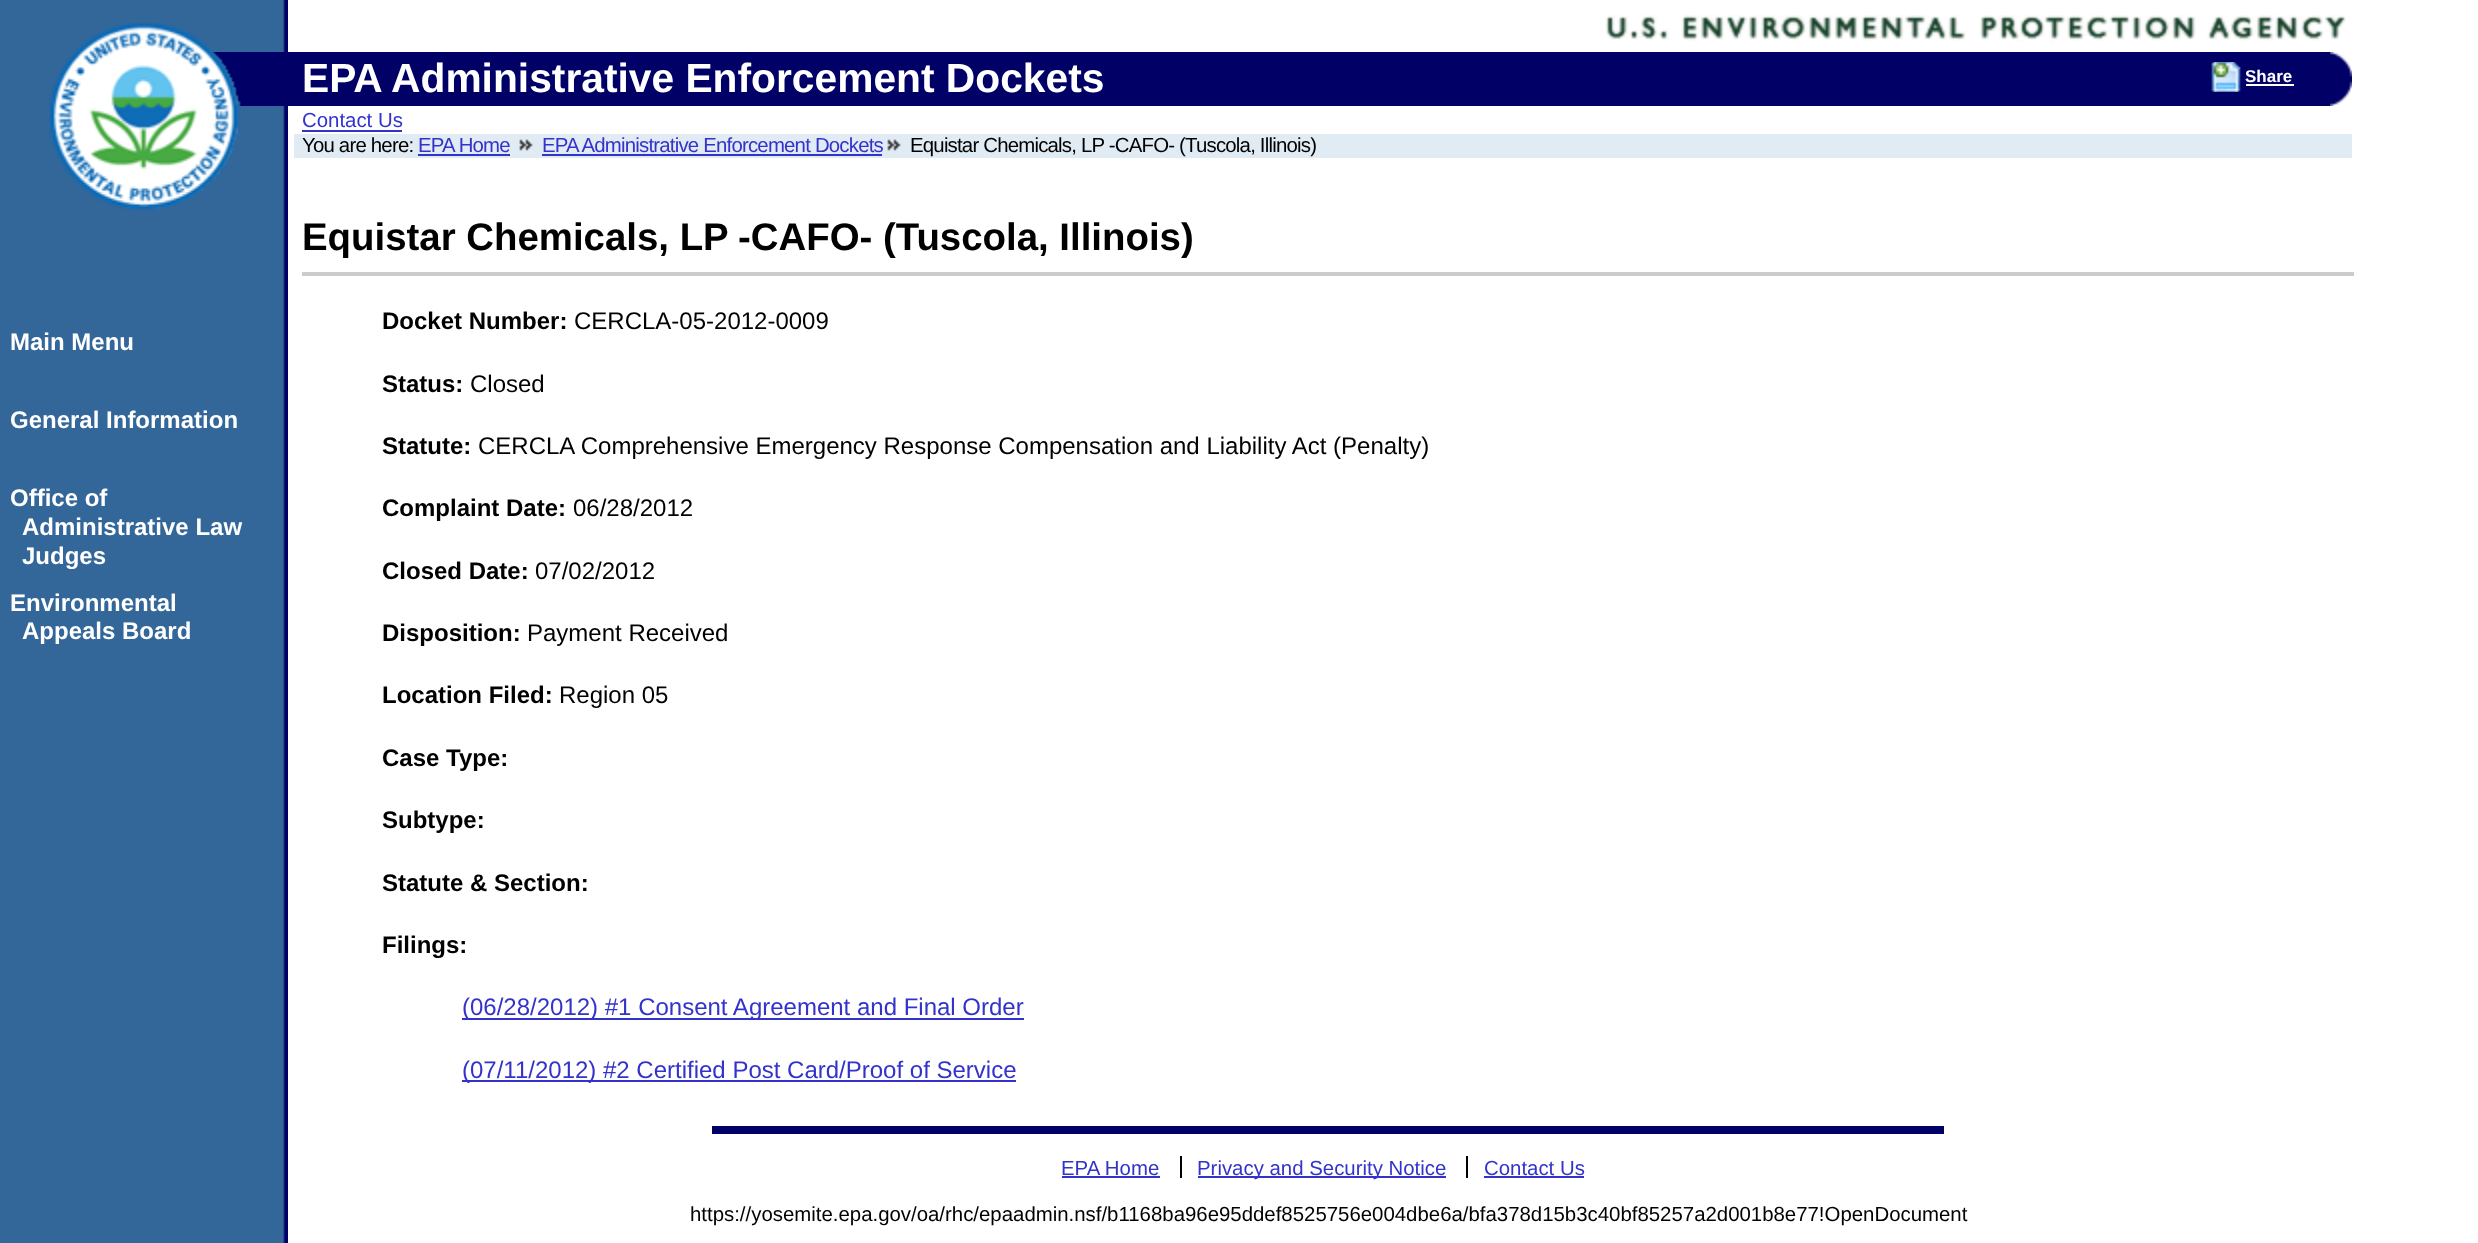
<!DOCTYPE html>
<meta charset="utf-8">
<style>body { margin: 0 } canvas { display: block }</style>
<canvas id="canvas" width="2478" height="1243"></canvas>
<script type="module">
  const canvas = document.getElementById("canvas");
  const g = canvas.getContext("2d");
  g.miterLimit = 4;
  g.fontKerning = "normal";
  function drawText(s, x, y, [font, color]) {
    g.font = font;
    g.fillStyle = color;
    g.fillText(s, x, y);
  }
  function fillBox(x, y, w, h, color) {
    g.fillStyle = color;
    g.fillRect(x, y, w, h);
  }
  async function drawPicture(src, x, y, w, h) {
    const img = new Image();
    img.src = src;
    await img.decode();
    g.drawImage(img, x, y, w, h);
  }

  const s1 = ["bold 40.75px Liberation Sans", "#FFFFFF"];
  const s2 = ["20.4px Liberation Sans", "#3333CC"];
  const s3 = ["20.4px Liberation Sans", "#000000"];
  const s4 = ["bold 17px Liberation Sans", "#FFFFFF"];
  const s5 = ["bold 24px Liberation Sans", "#FFFFFF"];
  const s6 = ["bold 38.4px Liberation Sans", "#000000"];
  const s7 = ["bold 24px Liberation Sans", "#000000"];
  const s8 = ["24px Liberation Sans", "#000000"];
  const s9 = ["24px Liberation Sans", "#3333CC"];

  fillBox(0, 0, 2478, 1243, "#FFFFFF");
  await drawPicture("pic1.png", 0, 0, 288, 1243);
  await drawPicture("pic2.png", 1605, 15, 741, 31);
  fillBox(211, 52, 2141, 54, "#000066");
  await drawPicture("pic3.png", 49, 23, 192, 188);
  await drawPicture("pic4.png", 2330, 52, 22, 25);
  await drawPicture("pic5.png", 2330, 81, 22, 25);
  drawText("EPA Administrative Enforcement Dockets", 302, 92, s1);
  drawText("Contact Us", 302, 127, s2);
  fillBox(302, 130, 100, 2, "#3333CC");
  fillBox(294, 134, 2058, 24, "#E1EBF4");
  g.letterSpacing = "-0.8px";
  drawText("You are here:", 302, 152, s3);
  drawText("EPA Home", 418, 152, s2);
  fillBox(418, 154, 92, 2, "#3333CC");
  await drawPicture("pic6.png", 519, 139, 14, 12);
  drawText("EPA Administrative Enforcement Dockets", 542, 152, s2);
  fillBox(542, 154, 340, 2, "#3333CC");
  await drawPicture("pic6.png", 887, 139, 14, 12);
  drawText("Equistar Chemicals, LP -CAFO- (Tuscola, Illinois)", 910, 152, s3);
  await drawPicture("pic7.png", 2211, 62, 30, 30);
  g.letterSpacing = "0px";
  drawText("Share", 2245, 82, s4);
  fillBox(2246, 84, 48, 2, "#FFFFFF");
  fillBox(712, 1126, 1232, 8, "#000066");
  drawText("EPA Home", 1061, 1175, s2);
  fillBox(1180, 1156, 2, 22, "#000000");
  fillBox(1062, 1176, 98, 2, "#3333CC");
  fillBox(1198, 1176, 248, 2, "#3333CC");
  drawText("Privacy and Security Notice", 1197, 1175, s2);
  fillBox(1466, 1156, 2, 22, "#000000");
  drawText("Contact Us", 1484, 1175, s2);
  fillBox(1484, 1176, 100, 2, "#3333CC");
  drawText("https://yosemite.epa.gov/oa/rhc/epaadmin.nsf/b1168ba96e95ddef8525756e004dbe6a/bfa378d15b3c40bf85257a2d001b8e77!OpenDocument", 690, 1221, s3);
  drawText("Main Menu", 10, 350, s5);
  drawText("General Information", 10, 428, s5);
  drawText("Office of", 10, 506, s5);
  drawText("Administrative Law", 22, 535, s5);
  drawText("Judges", 22, 564, s5);
  drawText("Environmental", 10, 611, s5);
  drawText("Appeals Board", 22, 639, s5);
  drawText("Equistar Chemicals, LP", 302, 250, s6);
  drawText("-CAFO- (Tuscola, Illinois)", 738, 250, s6);
  fillBox(302, 272, 2052, 4, "#CCCCCC");
  drawText("Docket Number:", 382, 329, s7);
  drawText("CERCLA-05-2012-0009", 574, 329, s8);
  drawText("Status:", 382, 392, s7);
  drawText("Closed", 470, 392, s8);
  drawText("Statute:", 382, 454, s7);
  drawText("CERCLA Comprehensive Emergency Response Compensation and Liability Act (Penalty)", 478, 454, s8);
  drawText("Complaint Date:", 382, 516, s7);
  drawText("06/28/2012", 573, 516, s8);
  drawText("Closed Date:", 382, 579, s7);
  drawText("07/02/2012", 535, 579, s8);
  drawText("Disposition:", 382, 641, s7);
  drawText("Payment Received", 527, 641, s8);
  drawText("Location Filed:", 382, 703, s7);
  drawText("Region 05", 559, 703, s8);
  drawText("Case Type:", 382, 766, s7);
  drawText("Subtype:", 382, 828, s7);
  drawText("Statute & Section:", 382, 891, s7);
  drawText("Filings:", 382, 953, s7);
  fillBox(462, 1018, 562, 2, "#3333CC");
  drawText("(06/28/2012) #1 Consent Agreement and Final Order", 462, 1015, s9);
  fillBox(462, 1080, 554, 2, "#3333CC");
  drawText("(07/11/2012) #2 Certified Post Card/Proof of Service", 462, 1078, s9);
</script>
